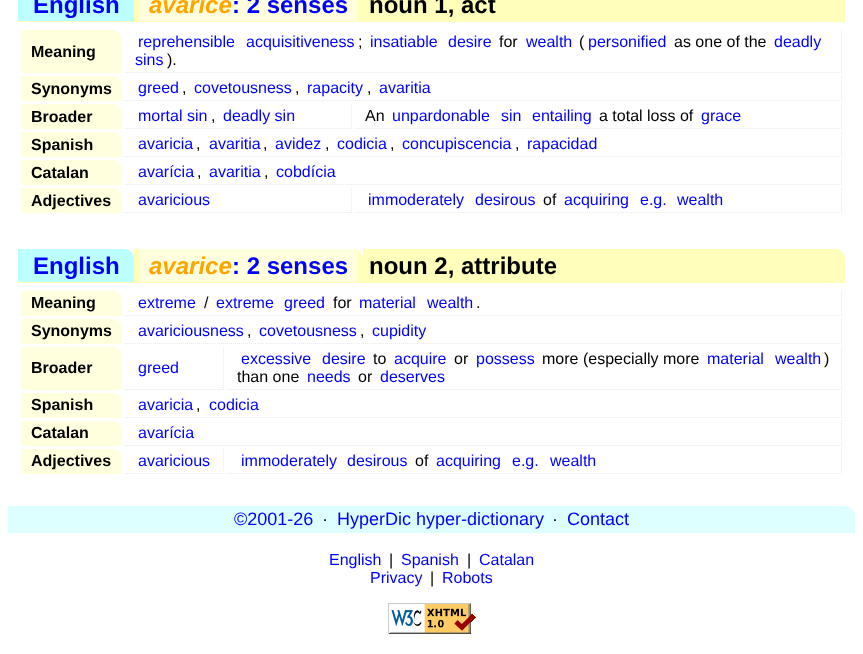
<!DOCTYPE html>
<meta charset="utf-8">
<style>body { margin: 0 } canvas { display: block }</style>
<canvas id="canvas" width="863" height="654"></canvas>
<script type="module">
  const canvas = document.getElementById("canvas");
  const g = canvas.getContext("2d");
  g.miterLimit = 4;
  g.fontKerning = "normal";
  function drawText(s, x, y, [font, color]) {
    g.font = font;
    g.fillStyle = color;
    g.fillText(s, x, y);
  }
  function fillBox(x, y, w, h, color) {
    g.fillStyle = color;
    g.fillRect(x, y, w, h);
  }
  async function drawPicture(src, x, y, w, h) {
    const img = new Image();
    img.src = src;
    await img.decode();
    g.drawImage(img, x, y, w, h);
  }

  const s1 = ["bold 24px Liberation Sans", "#0000FF"];
  const s2 = ["italic bold 24px Liberation Sans", "#FFA500"];
  const s3 = ["bold 24px Liberation Sans", "#000000"];
  const s4 = ["bold 16px Liberation Sans", "#000000"];
  const s5 = ["16px Liberation Sans", "#0000FF"];
  const s6 = ["16px Liberation Sans", "#000000"];
  const s7 = ["18px Liberation Sans", "#0000FF"];
  const s8 = ["18px Liberation Sans", "#000000"];

  fillBox(0, 0, 863, 654, "#FFFFFF");
  fillBox(18, 0, 827, 22, "#FFFFBB");
  fillBox(18, 0, 116, 21, "#BBFFFF");
  drawText("English", 33, 13, s1);
  fillBox(139, 0, 219, 21, "#FFFFDD");
  drawText("avarice", 149, 13, s2);
  drawText(": 2 senses", 232, 13, s1);
  drawText("noun 1, act", 369, 13, s3);
  fillBox(21, 30, 101, 43, "#FFFFDD");
  await drawPicture("pic1.png", 113, 30, 9, 9);
  drawText("Meaning", 31, 57, s4);
  g.beginPath();
  g.moveTo(841.5, 30);
  g.lineTo(841.5, 73);
  g.strokeStyle = "#EEEECC";
  g.setLineDash([1, 1]);
  g.stroke();
  g.beginPath();
  g.moveTo(125, 72.5);
  g.lineTo(842, 72.5);
  g.stroke();
  drawText("reprehensible", 138, 47, s5);
  drawText("acquisitiveness", 246, 47, s5);
  drawText(";", 358, 47, s6);
  drawText("insatiable", 370, 47, s5);
  drawText("desire", 448, 47, s5);
  drawText("for", 499, 47, s6);
  drawText("wealth", 526, 47, s5);
  drawText("(", 579, 47, s6);
  drawText("personified", 588, 47, s5);
  drawText("as one of the", 674, 47, s6);
  drawText("deadly", 774, 47, s5);
  drawText("sins", 135, 65, s5);
  drawText(").", 167, 65, s6);
  fillBox(21, 76, 101, 25, "#FFFFDD");
  await drawPicture("pic1.png", 113, 76, 9, 9);
  drawText("Synonyms", 31, 94, s4);
  g.beginPath();
  g.moveTo(841.5, 76);
  g.lineTo(841.5, 101);
  g.stroke();
  g.beginPath();
  g.moveTo(125, 100.5);
  g.lineTo(842, 100.5);
  g.stroke();
  drawText("greed", 138, 93, s5);
  drawText(",", 182, 93, s6);
  drawText("covetousness", 194, 93, s5);
  drawText(",", 295, 93, s6);
  drawText("rapacity", 307, 93, s5);
  drawText(",", 367, 93, s6);
  drawText("avaritia", 379, 93, s5);
  fillBox(21, 104, 101, 25, "#FFFFDD");
  await drawPicture("pic1.png", 113, 104, 9, 9);
  drawText("Broader", 31, 122, s4);
  g.beginPath();
  g.moveTo(351.5, 104);
  g.lineTo(351.5, 129);
  g.stroke();
  g.beginPath();
  g.moveTo(125, 128.5);
  g.lineTo(352, 128.5);
  g.stroke();
  drawText("mortal sin", 138, 121, s5);
  drawText(",", 211, 121, s6);
  drawText("deadly sin", 223, 121, s5);
  g.beginPath();
  g.moveTo(841.5, 104);
  g.lineTo(841.5, 129);
  g.stroke();
  g.beginPath();
  g.moveTo(355, 128.5);
  g.lineTo(842, 128.5);
  g.stroke();
  drawText("An", 365, 121, s6);
  drawText("unpardonable", 392, 121, s5);
  drawText("sin", 501, 121, s5);
  drawText("entailing", 532, 121, s5);
  drawText("a total loss of", 599, 121, s6);
  drawText("grace", 701, 121, s5);
  fillBox(21, 132, 101, 25, "#FFFFDD");
  await drawPicture("pic1.png", 113, 132, 9, 9);
  drawText("Spanish", 31, 150, s4);
  g.beginPath();
  g.moveTo(841.5, 132);
  g.lineTo(841.5, 157);
  g.stroke();
  g.beginPath();
  g.moveTo(125, 156.5);
  g.lineTo(842, 156.5);
  g.stroke();
  drawText("avaricia", 138, 149, s5);
  drawText(",", 196, 149, s6);
  drawText("avaritia", 209, 149, s5);
  drawText(",", 263, 149, s6);
  drawText("avidez", 275, 149, s5);
  drawText(",", 325, 149, s6);
  drawText("codicia", 337, 149, s5);
  drawText(",", 390, 149, s6);
  drawText("concupiscencia", 402, 149, s5);
  drawText(",", 515, 149, s6);
  drawText("rapacidad", 527, 149, s5);
  fillBox(21, 160, 101, 25, "#FFFFDD");
  await drawPicture("pic1.png", 113, 160, 9, 9);
  drawText("Catalan", 31, 178, s4);
  g.beginPath();
  g.moveTo(841.5, 160);
  g.lineTo(841.5, 185);
  g.stroke();
  g.beginPath();
  g.moveTo(125, 184.5);
  g.lineTo(842, 184.5);
  g.stroke();
  drawText("avarícia", 138, 177, s5);
  drawText(",", 197, 177, s6);
  drawText("avaritia", 209, 177, s5);
  drawText(",", 264, 177, s6);
  drawText("cobdícia", 276, 177, s5);
  fillBox(21, 188, 101, 25, "#FFFFDD");
  await drawPicture("pic1.png", 113, 188, 9, 9);
  drawText("Adjectives", 31, 206, s4);
  g.beginPath();
  g.moveTo(351.5, 188);
  g.lineTo(351.5, 213);
  g.stroke();
  g.beginPath();
  g.moveTo(125, 212.5);
  g.lineTo(352, 212.5);
  g.stroke();
  drawText("avaricious", 138, 205, s5);
  g.beginPath();
  g.moveTo(841.5, 188);
  g.lineTo(841.5, 213);
  g.stroke();
  g.beginPath();
  g.moveTo(355, 212.5);
  g.lineTo(842, 212.5);
  g.stroke();
  drawText("immoderately", 368, 205, s5);
  drawText("desirous", 475, 205, s5);
  drawText("of", 543, 205, s6);
  drawText("acquiring", 564, 205, s5);
  drawText("e.g.", 640, 205, s5);
  drawText("wealth", 677, 205, s5);
  fillBox(18, 249, 827, 34, "#FFFFBB");
  await drawPicture("pic2.png", 836, 249, 9, 9);
  fillBox(18, 249, 116, 33, "#BBFFFF");
  await drawPicture("pic3.png", 125, 249, 9, 9);
  await drawPicture("pic4.png", 358, 249, 5, 9);
  drawText("English", 33, 274, s1);
  fillBox(139, 249, 219, 33, "#FFFFDD");
  drawText("avarice", 149, 274, s2);
  drawText(": 2 senses", 232, 274, s1);
  drawText("noun 2, attribute", 369, 274, s3);
  fillBox(21, 291, 101, 25, "#FFFFDD");
  await drawPicture("pic1.png", 113, 291, 9, 9);
  drawText("Meaning", 31, 308, s4);
  g.beginPath();
  g.moveTo(841.5, 291);
  g.lineTo(841.5, 316);
  g.stroke();
  g.beginPath();
  g.moveTo(125, 315.5);
  g.lineTo(842, 315.5);
  g.stroke();
  drawText("extreme", 138, 308, s5);
  drawText("/", 204, 308, s6);
  drawText("extreme", 216, 308, s5);
  drawText("greed", 284, 308, s5);
  drawText("for", 333, 308, s6);
  drawText("material", 359, 308, s5);
  drawText("wealth", 427, 308, s5);
  drawText(".", 476, 308, s6);
  fillBox(21, 319, 101, 25, "#FFFFDD");
  await drawPicture("pic1.png", 113, 319, 9, 9);
  drawText("Synonyms", 31, 336, s4);
  g.beginPath();
  g.moveTo(841.5, 319);
  g.lineTo(841.5, 344);
  g.stroke();
  g.beginPath();
  g.moveTo(125, 343.5);
  g.lineTo(842, 343.5);
  g.stroke();
  drawText("avariciousness", 138, 336, s5);
  drawText(",", 247, 336, s6);
  drawText("covetousness", 259, 336, s5);
  drawText(",", 360, 336, s6);
  drawText("cupidity", 372, 336, s5);
  fillBox(21, 347, 101, 43, "#FFFFDD");
  await drawPicture("pic1.png", 113, 347, 9, 9);
  drawText("Broader", 31, 373, s4);
  g.beginPath();
  g.moveTo(223.5, 347);
  g.lineTo(223.5, 390);
  g.stroke();
  g.beginPath();
  g.moveTo(125, 389.5);
  g.lineTo(224, 389.5);
  g.stroke();
  drawText("greed", 138, 373, s5);
  g.beginPath();
  g.moveTo(841.5, 347);
  g.lineTo(841.5, 390);
  g.stroke();
  g.beginPath();
  g.moveTo(227, 389.5);
  g.lineTo(842, 389.5);
  g.stroke();
  drawText("excessive", 241, 364, s5);
  drawText("desire", 322, 364, s5);
  drawText("to", 373, 364, s6);
  drawText("acquire", 394, 364, s5);
  drawText("or", 454, 364, s6);
  drawText("possess", 476, 364, s5);
  drawText("more (especially more", 542, 364, s6);
  drawText("material", 707, 364, s5);
  drawText("wealth", 775, 364, s5);
  drawText(")", 824, 364, s6);
  drawText("than one", 237, 382, s6);
  drawText("needs", 307, 382, s5);
  drawText("or", 358, 382, s6);
  drawText("deserves", 380, 382, s5);
  fillBox(21, 393, 101, 25, "#FFFFDD");
  await drawPicture("pic1.png", 113, 393, 9, 9);
  drawText("Spanish", 31, 410, s4);
  g.beginPath();
  g.moveTo(841.5, 393);
  g.lineTo(841.5, 418);
  g.stroke();
  g.beginPath();
  g.moveTo(125, 417.5);
  g.lineTo(842, 417.5);
  g.stroke();
  drawText("avaricia", 138, 410, s5);
  drawText(",", 196, 410, s6);
  drawText("codicia", 209, 410, s5);
  fillBox(21, 421, 101, 25, "#FFFFDD");
  await drawPicture("pic1.png", 113, 421, 9, 9);
  drawText("Catalan", 31, 438, s4);
  g.beginPath();
  g.moveTo(841.5, 421);
  g.lineTo(841.5, 446);
  g.stroke();
  g.beginPath();
  g.moveTo(125, 445.5);
  g.lineTo(842, 445.5);
  g.stroke();
  drawText("avarícia", 138, 438, s5);
  fillBox(21, 449, 101, 25, "#FFFFDD");
  await drawPicture("pic1.png", 113, 449, 9, 9);
  drawText("Adjectives", 31, 466, s4);
  g.beginPath();
  g.moveTo(223.5, 449);
  g.lineTo(223.5, 474);
  g.stroke();
  g.beginPath();
  g.moveTo(125, 473.5);
  g.lineTo(224, 473.5);
  g.stroke();
  drawText("avaricious", 138, 466, s5);
  g.beginPath();
  g.moveTo(841.5, 449);
  g.lineTo(841.5, 474);
  g.stroke();
  g.beginPath();
  g.moveTo(227, 473.5);
  g.lineTo(842, 473.5);
  g.stroke();
  drawText("immoderately", 241, 466, s5);
  drawText("desirous", 347, 466, s5);
  drawText("of", 415, 466, s6);
  drawText("acquiring", 436, 466, s5);
  drawText("e.g.", 512, 466, s5);
  drawText("wealth", 550, 466, s5);
  fillBox(8, 506, 847, 27, "#DDFFFF");
  await drawPicture("pic5.png", 846, 506, 9, 9);
  drawText("©2001-26", 234, 525, s7);
  drawText("·", 322, 525, s8);
  drawText("HyperDic hyper-dictionary", 337, 525, s7);
  drawText("·", 552, 525, s8);
  drawText("Contact", 567, 525, s7);
  drawText("English", 329, 565, s5);
  drawText("|", 389, 565, s6);
  drawText("Spanish", 401, 565, s5);
  drawText("|", 467, 565, s6);
  drawText("Catalan", 479, 565, s5);
  drawText("Privacy", 370, 583, s5);
  drawText("|", 430, 583, s6);
  drawText("Robots", 442, 583, s5);
  await drawPicture("pic6.png", 388, 603, 88, 31);
</script>
